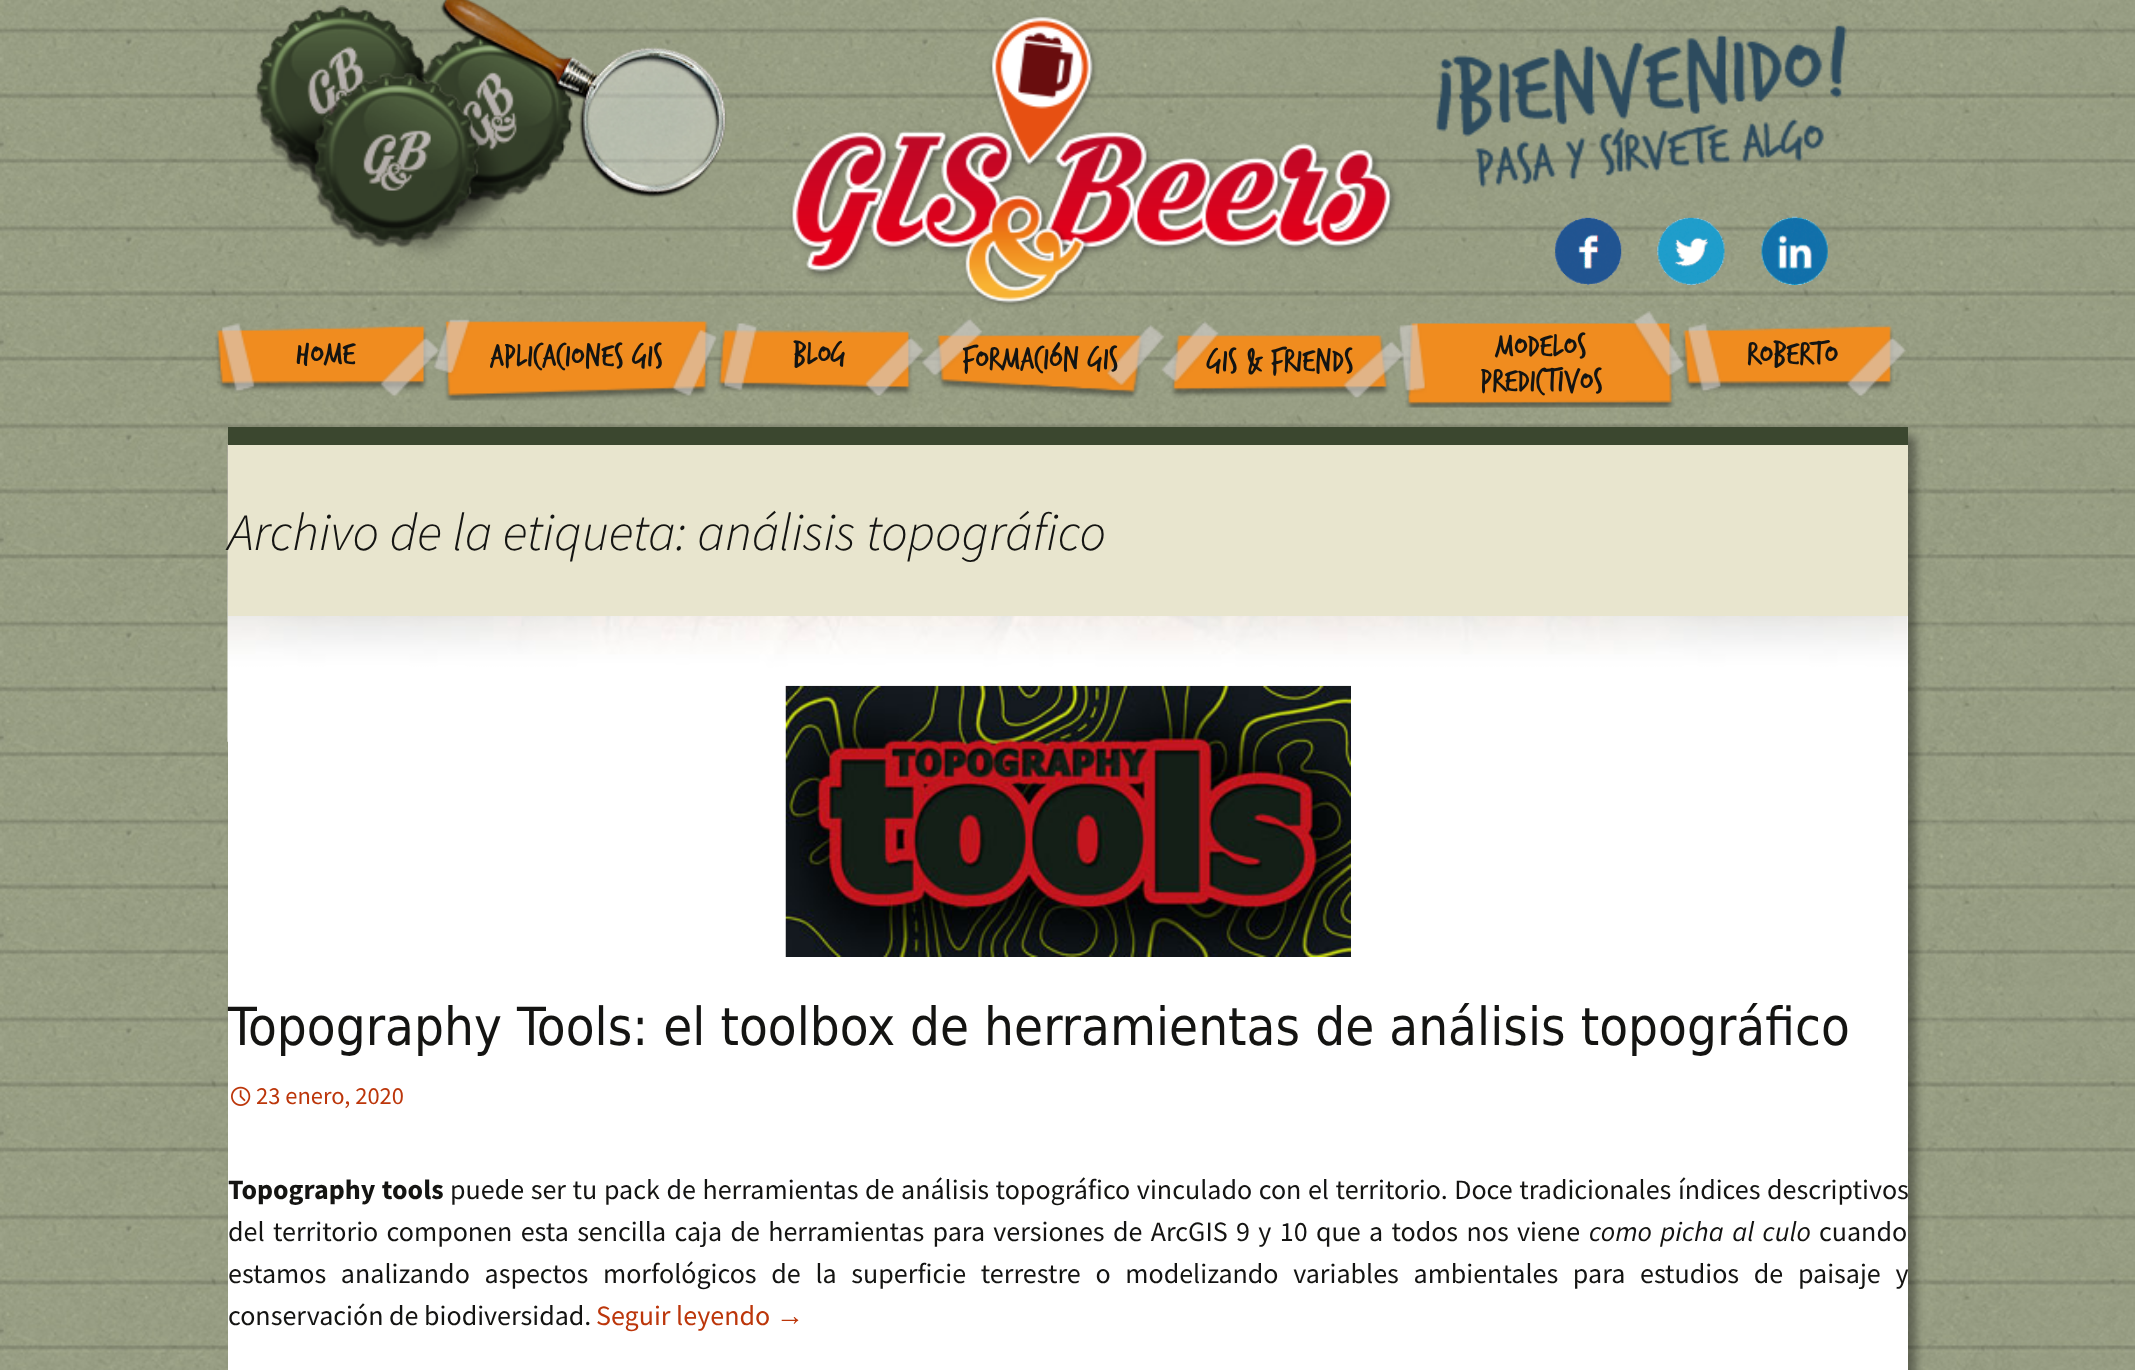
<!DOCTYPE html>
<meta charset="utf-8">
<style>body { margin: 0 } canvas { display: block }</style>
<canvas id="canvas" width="2135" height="1370"></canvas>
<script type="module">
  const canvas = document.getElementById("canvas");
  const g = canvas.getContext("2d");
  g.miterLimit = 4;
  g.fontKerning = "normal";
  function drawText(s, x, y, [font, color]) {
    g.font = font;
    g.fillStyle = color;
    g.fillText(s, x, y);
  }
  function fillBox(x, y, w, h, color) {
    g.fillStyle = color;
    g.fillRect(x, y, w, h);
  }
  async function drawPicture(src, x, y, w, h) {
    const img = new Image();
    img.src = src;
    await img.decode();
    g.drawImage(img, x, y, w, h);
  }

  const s1 = ["35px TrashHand", "#141412"];
  const s2 = ["italic 300 52.5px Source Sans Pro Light", "#141412"];
  const s3 = ["52.5px DejaVu Sans", "#141412"];
  const s4 = ["24.5px Source Sans Pro", "#BC360A"];
  const s5 = ["bold 28px Source Sans Pro", "#141412"];
  const s6 = ["28px Source Sans Pro", "#141412"];
  const s7 = ["italic 28px Source Sans Pro", "#141412"];
  const s8 = ["28px Source Sans Pro", "#BC360A"];
  const s9 = ["28px Liberation Sans", "#BC360A"];

  fillBox(0, 0, 2135, 1370, "#FFFFFF");
  await drawPicture("pic1.png", 0, 0, 2135, 1370);
  await drawPicture("pic2.png", 270, 15, 1577, 292);
  await drawPicture("pic4.png", 419, 33, 155, 169);
  await drawPicture("pic3.png", 254, 5, 174, 169);
  await drawPicture("pic5.png", 310, 73, 170, 175);
  await drawPicture("pic6.png", 440, 0, 287, 198);
  await drawPicture("pic7.png", 1555, 217, 67, 68);
  await drawPicture("pic8.png", 1657, 217, 68, 68);
  await drawPicture("pic9.png", 1761, 216, 67, 69);
  await drawPicture("pic10.png", 215, 323, 224, 74);
  drawText("HOME", 296, 363, s1);
  await drawPicture("pic11.png", 433, 319, 284, 82);
  drawText("APLICACIONES GIS", 490, 365, s1);
  await drawPicture("pic12.png", 717, 323, 207, 74);
  drawText("BLOG", 793, 363, s1);
  await drawPicture("pic13.png", 922, 318, 243, 81);
  drawText("FORMACIÓN GIS", 962, 368, s1);
  await drawPicture("pic14.png", 1161, 321, 243, 77);
  drawText("GIS & FRIENDS", 1207, 370, s1);
  await drawPicture("pic15.png", 1398, 311, 286, 97);
  drawText("MODELOS", 1495, 355, s1);
  drawText("PREDICTIVOS", 1480, 390, s1);
  await drawPicture("pic16.png", 1681, 323, 225, 74);
  drawText("ROBERTO", 1747, 363, s1);
  g.fillStyle = "rgba(0, 0, 0, 0.37)";
  g.filter = "blur(4.5px)";
  g.beginPath();
  g.rect(236, 436, 1680, 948);
  g.fill();
  g.filter = "none";
  fillBox(228, 616, 1680, 754, "#FFFFFF");
  await drawPicture("pic17.png", 227, 444, 1681, 298);
  fillBox(228, 427, 1680, 18, "#3B472F");
  fillBox(228, 445, 1680, 171, "#E8E5CE");
  drawText("Archivo de la etiqueta: análisis topográfico", 228, 550, s2);
  await drawPicture("pic18.png", 785, 685, 566, 272);
  drawText("Topography Tools: el toolbox de herramientas de análisis topográfico", 228, 1045, s3);
  await drawPicture("pic19.png", 231, 1086, 20, 20);
  drawText("23 enero, 2020", 256, 1104, s4);
  g.wordSpacing = "1px";
  drawText("Topography tools", 228, 1199, s5);
  drawText("puede ser tu pack de herramientas de análisis topográfico vinculado con el territorio. Doce tradicionales índices descriptivos", 450, 1199, s6);
  g.wordSpacing = "2.75px";
  drawText("del territorio componen esta sencilla caja de herramientas para versiones de ArcGIS 9 y 10 que a todos nos viene", 228, 1241, s6);
  drawText("como picha al culo", 1589, 1241, s7);
  g.wordSpacing = "0px";
  drawText("cuando", 1819, 1241, s6);
  g.wordSpacing = "9.1px";
  drawText("estamos analizando aspectos morfológicos de la superficie terrestre o modelizando variables ambientales para estudios de paisaje y", 228, 1283, s6);
  g.wordSpacing = "0px";
  drawText("conservación de biodiversidad.", 228, 1325, s6);
  drawText("Seguir leyendo", 596, 1325, s8);
  drawText("→", 776, 1325, s9);
</script>
